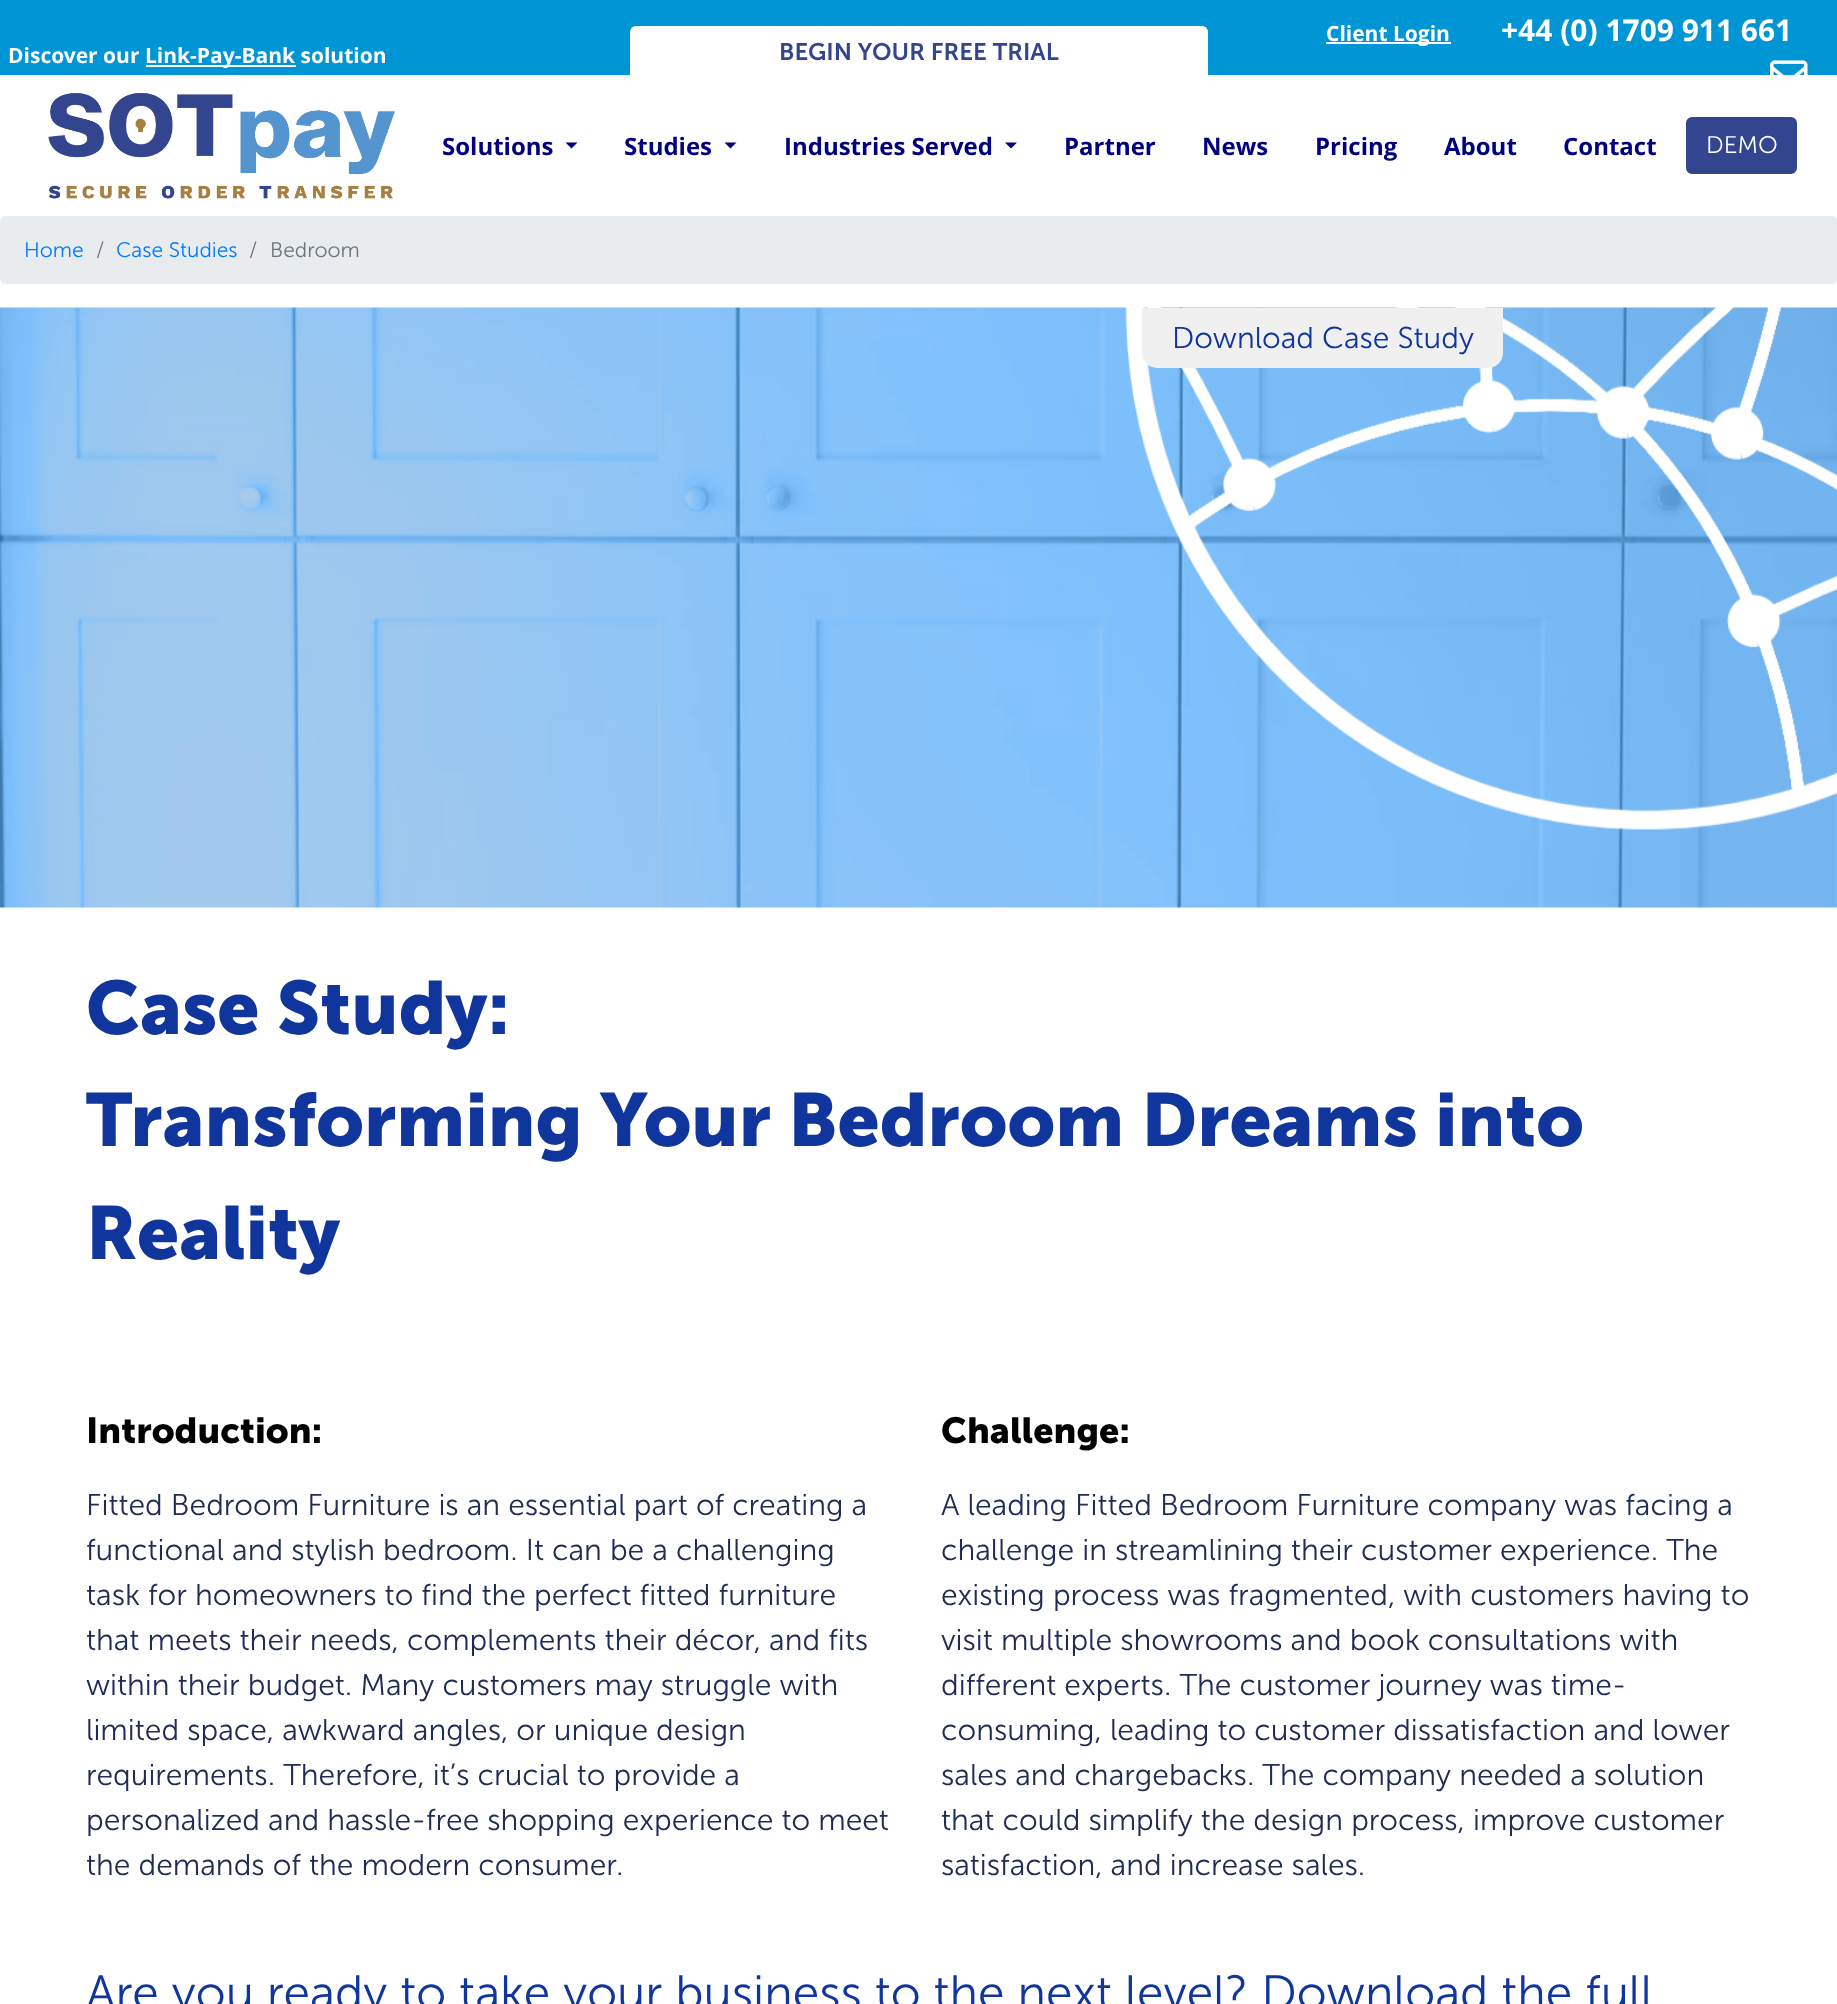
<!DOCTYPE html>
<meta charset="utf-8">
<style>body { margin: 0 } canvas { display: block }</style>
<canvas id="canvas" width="1837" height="2004"></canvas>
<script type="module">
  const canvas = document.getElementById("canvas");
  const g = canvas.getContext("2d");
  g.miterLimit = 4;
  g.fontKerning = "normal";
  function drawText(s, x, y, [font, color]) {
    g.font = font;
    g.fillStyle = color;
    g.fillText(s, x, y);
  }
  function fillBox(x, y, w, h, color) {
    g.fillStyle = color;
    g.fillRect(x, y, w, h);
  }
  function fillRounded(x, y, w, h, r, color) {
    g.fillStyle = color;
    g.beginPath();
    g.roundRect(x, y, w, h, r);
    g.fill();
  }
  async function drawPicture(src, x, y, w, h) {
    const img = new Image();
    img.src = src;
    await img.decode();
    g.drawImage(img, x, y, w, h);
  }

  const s1 = ["bold 21px Open Sans", "#FFFFFF"];
  const s2 = ["bold 30px Open Sans", "#FFFFFF"];
  const s3 = ["600 24px 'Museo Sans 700'", "#33458F"];
  const s4 = ["bold 24px 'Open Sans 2'", "#000080"];
  const s5 = ["300 24px 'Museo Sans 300'", "#FFFFFF"];
  const s6 = ["300 21px 'Museo Sans 300'", "#007BFF"];
  const s7 = ["300 21px 'Museo Sans 300'", "#6C757D"];
  const s8 = ["300 30px 'Museo Sans 300'", "#10359D"];
  const s9 = ["bold 75px 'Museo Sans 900'", "#10359D"];
  const s10 = ["bold 36px 'Museo Sans 900'", "#000000"];
  const s11 = ["300 30px 'Museo Sans 300'", "#202C54"];
  const s12 = ["300 48px 'Museo Sans 300'", "#10359D"];

  fillBox(0, 0, 1837, 2004, "#FFFFFF");
  fillBox(0, 0, 1837, 75, "#0096D6");
  fillBox(1326, 42, 125, 2, "#FFFFFF");
  drawText("Client Login", 1326, 41, s1);
  drawText("+44 (0) 1709 911 661", 1501, 41, s2);
  await drawPicture("pic1.png", 1770, 60, 38, 15);
  drawText("Discover our", 8, 63, s1);
  fillBox(146, 65, 150, 2, "#FFFFFF");
  drawText("Link-Pay-Bank solution", 145, 63, s1);
  fillRounded(630, 26, 578, 54, 6, "#FFFFFF");
  drawText("BEGIN YOUR FREE TRIAL", 779, 60, s3);
  await drawPicture("pic2.png", 48, 93, 347, 106);
  drawText("Solutions", 442, 155, s4);
  g.beginPath();
  g.moveTo(565.5, 142.5);
  g.lineTo(577.5, 142.5);
  g.lineTo(571.5, 148.5);
  g.closePath();
  g.fill();
  drawText("Studies", 624, 155, s4);
  g.beginPath();
  g.moveTo(724.5, 142.5);
  g.lineTo(736.5, 142.5);
  g.lineTo(730.5, 148.5);
  g.closePath();
  g.fill();
  drawText("Industries Served", 784, 155, s4);
  g.beginPath();
  g.moveTo(1005, 142.5);
  g.lineTo(1017, 142.5);
  g.lineTo(1011, 148.5);
  g.closePath();
  g.fill();
  drawText("Partner", 1064, 155, s4);
  drawText("News", 1202, 155, s4);
  drawText("Pricing", 1315, 155, s4);
  drawText("About", 1444, 155, s4);
  drawText("Contact", 1563, 155, s4);
  g.fillStyle = "#33458F";
  g.beginPath();
  g.roundRect(1687, 118, 109, 55, 5);
  g.fill();
  g.strokeStyle = "#33458F";
  g.lineWidth = 2;
  g.stroke();
  drawText("DEMO", 1706, 153, s5);
  fillRounded(0, 216, 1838, 68, 6, "#E9ECEF");
  drawText("Home", 24, 257, s6);
  drawText("/", 96, 257, s7);
  drawText("Case Studies", 116, 257, s6);
  drawText("/", 249, 257, s7);
  drawText("Bedroom", 270, 257, s7);
  await drawPicture("pic3.png", 0, 307, 1837, 601);
  g.fillStyle = "#F0F0F0";
  g.beginPath();
  g.roundRect(1142, 308, 361, 60, [0, 0, 15, 15]);
  g.fill();
  drawText("Download Case Study", 1172, 348, s8);
  drawText("Case Study:", 86, 1034, s9);
  drawText("Transforming Your Bedroom Dreams into", 86, 1146, s9);
  drawText("Reality", 86, 1259, s9);
  drawText("Introduction:", 86, 1443, s10);
  drawText("Fitted Bedroom Furniture is an essential part of creating a", 86, 1515, s11);
  drawText("functional and stylish bedroom. It can be a challenging", 86, 1560, s11);
  drawText("task for homeowners to find the perfect fitted furniture", 86, 1605, s11);
  drawText("that meets their needs, complements their décor, and fits", 86, 1650, s11);
  drawText("within their budget. Many customers may struggle with", 86, 1695, s11);
  drawText("limited space, awkward angles, or unique design", 86, 1740, s11);
  drawText("requirements. Therefore, it’s crucial to provide a", 86, 1785, s11);
  drawText("personalized and hassle-free shopping experience to meet", 86, 1830, s11);
  drawText("the demands of the modern consumer.", 86, 1875, s11);
  drawText("Challenge:", 941, 1443, s10);
  drawText("A leading Fitted Bedroom Furniture company was facing a", 941, 1515, s11);
  drawText("challenge in streamlining their customer experience. The", 941, 1560, s11);
  drawText("existing process was fragmented, with customers having to", 941, 1605, s11);
  drawText("visit multiple showrooms and book consultations with", 941, 1650, s11);
  drawText("different experts. The customer journey was time-", 941, 1695, s11);
  drawText("consuming, leading to customer dissatisfaction and lower", 941, 1740, s11);
  drawText("sales and chargebacks. The company needed a solution", 941, 1785, s11);
  drawText("that could simplify the design process, improve customer", 941, 1830, s11);
  drawText("satisfaction, and increase sales.", 941, 1875, s11);
  drawText("Are you ready to take your business to the next level? Download the full", 86, 2009, s12);
</script>
